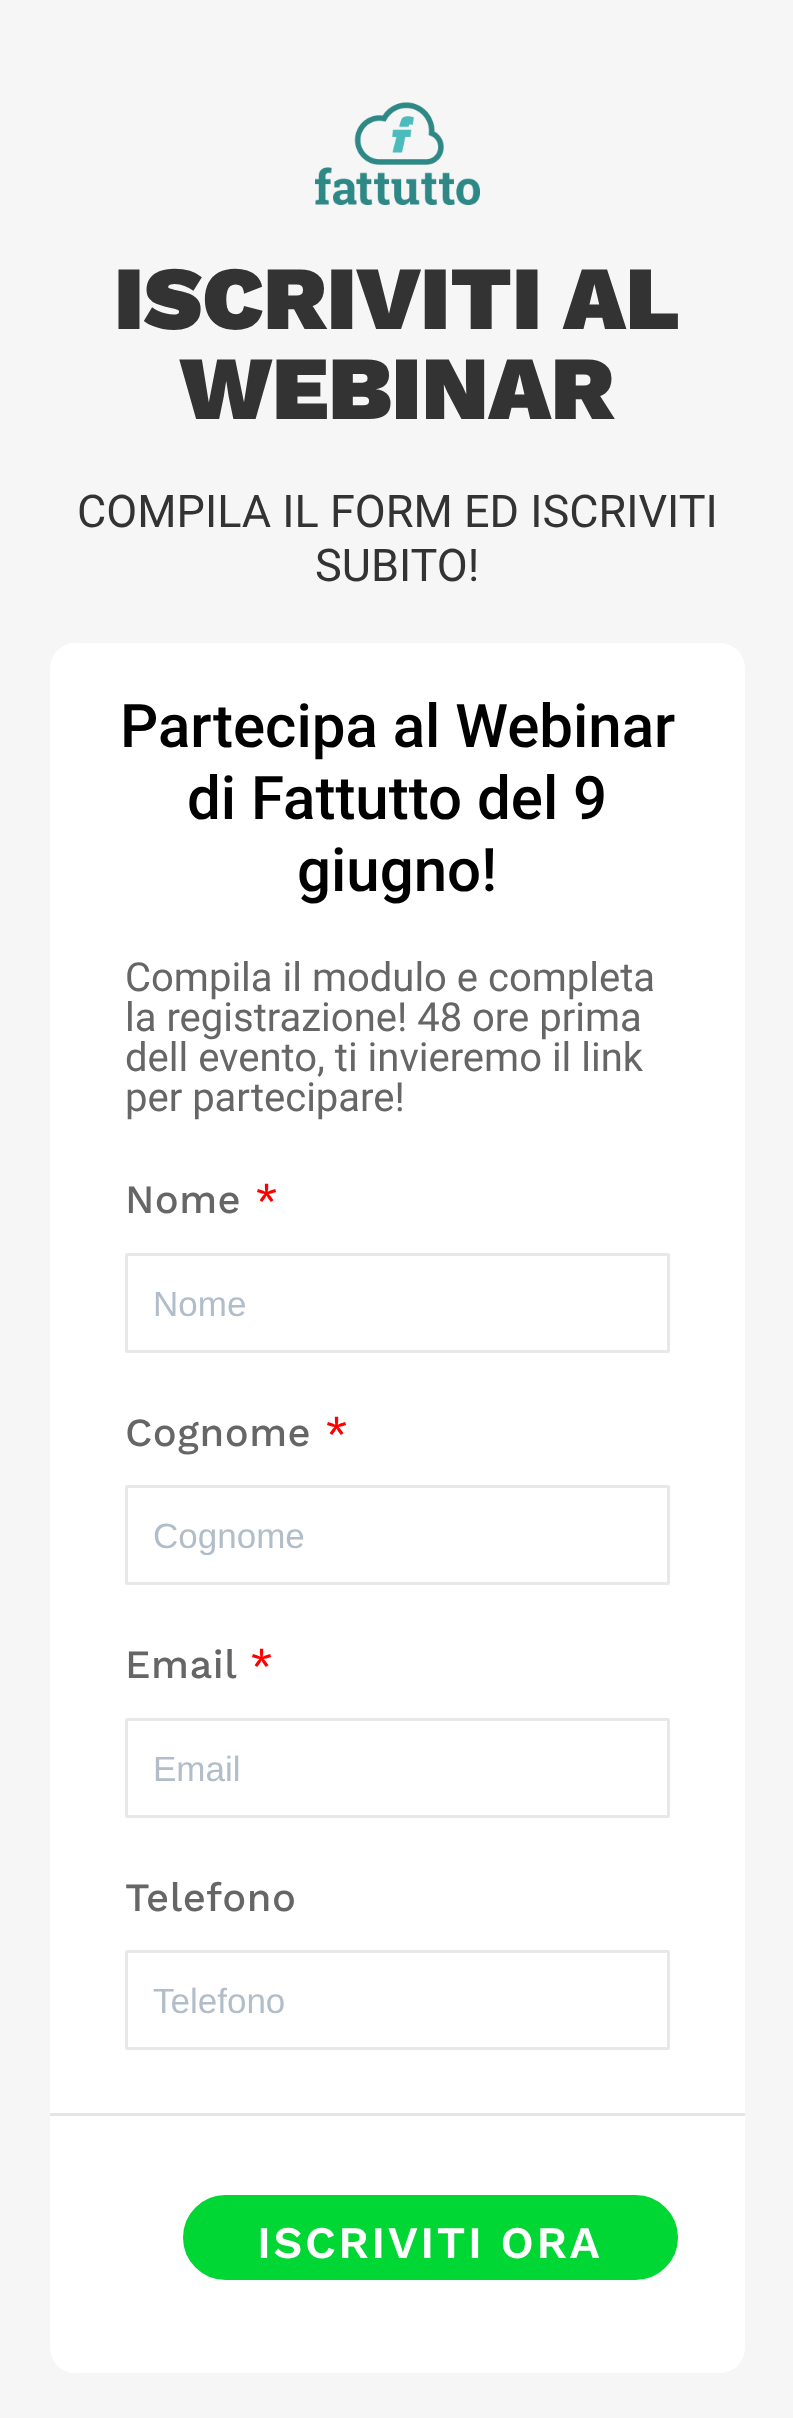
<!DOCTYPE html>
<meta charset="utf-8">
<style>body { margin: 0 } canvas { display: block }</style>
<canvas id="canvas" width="793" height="2418"></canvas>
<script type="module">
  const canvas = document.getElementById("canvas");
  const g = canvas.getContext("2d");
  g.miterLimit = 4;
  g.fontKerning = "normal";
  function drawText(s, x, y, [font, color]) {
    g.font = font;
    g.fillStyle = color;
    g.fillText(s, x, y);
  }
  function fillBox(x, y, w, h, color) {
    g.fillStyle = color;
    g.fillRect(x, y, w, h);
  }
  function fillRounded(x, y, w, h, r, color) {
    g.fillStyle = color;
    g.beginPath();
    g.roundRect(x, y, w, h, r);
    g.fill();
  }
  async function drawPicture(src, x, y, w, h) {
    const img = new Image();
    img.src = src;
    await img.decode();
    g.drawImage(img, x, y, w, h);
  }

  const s1 = ["900 90px Work Sans", "#333333"];
  const s2 = ["45px Roboto", "#333333"];
  const s3 = ["500 60px Roboto", "#000000"];
  const s4 = ["40px Roboto", "#666666"];
  const s5 = ["500 40px Work Sans", "#666666"];
  const s6 = ["500 40px Work Sans", "#FF0000"];
  const s7 = ["35px Liberation Sans", "#B1BDC8"];
  const s8 = ["600 45px Work Sans", "#FFFFFF"];

  fillBox(0, 0, 793, 2418, "#F6F6F6");
  await drawPicture("pic1.png", 315, 102, 165, 103);
  drawText("ISCRIVITI AL", 114, 329, s1);
  drawText("WEBINAR", 180, 419, s1);
  drawText("COMPILA IL FORM ED ISCRIVITI", 77, 527, s2);
  drawText("SUBITO!", 315, 581, s2);
  fillRounded(50, 643, 695, 1730, 25, "#FFFFFF");
  drawText("Partecipa al Webinar", 120, 747, s3);
  drawText("di Fattutto del 9", 187, 819, s3);
  drawText("giugno!", 297, 891, s3);
  drawText("Compila il modulo e completa", 125, 991, s4);
  drawText("la registrazione! 48 ore prima", 125, 1031, s4);
  drawText("dell evento, ti invieremo il link", 125, 1071, s4);
  drawText("per partecipare!", 125, 1111, s4);
  g.letterSpacing = "0.5px";
  drawText("Nome", 125, 1213, s5);
  drawText("*", 255, 1213, s6);
  g.beginPath();
  g.roundRect(126.5, 1254.5, 542, 97, 1);
  g.strokeStyle = "#E8E8E8";
  g.lineWidth = 3;
  g.stroke();
  g.letterSpacing = "0px";
  drawText("Nome", 153, 1316, s7);
  g.letterSpacing = "0.5px";
  drawText("Cognome", 125, 1446, s5);
  drawText("*", 325, 1446, s6);
  g.beginPath();
  g.roundRect(126.5, 1486.5, 542, 97, 1);
  g.stroke();
  g.save();
  g.beginPath();
  g.rect(153, 1515, 490, 40);
  g.clip();
  g.letterSpacing = "0px";
  drawText("Cognome", 153, 1548, s7);
  g.restore();
  drawText("Email", 125, 1678, s5);
  drawText("*", 250, 1678, s6);
  g.beginPath();
  g.roundRect(126.5, 1719.5, 542, 97, 1);
  g.stroke();
  g.letterSpacing = "0px";
  drawText("Email", 153, 1781, s7);
  g.letterSpacing = "0.5px";
  drawText("Telefono", 125, 1911, s5);
  g.beginPath();
  g.roundRect(126.5, 1951.5, 542, 97, 1);
  g.stroke();
  g.letterSpacing = "0px";
  drawText("Telefono", 153, 2013, s7);
  fillBox(50, 2113, 695, 3, "#E5E5E5");
  g.fillStyle = "#00D734";
  g.beginPath();
  g.roundRect(180.5, 2192.5, 500, 90, 45);
  g.fill();
  g.strokeStyle = "#FFFFFF";
  g.lineWidth = 5;
  g.stroke();
  g.letterSpacing = "2.5px";
  drawText("ISCRIVITI ORA", 257, 2258, s8);
</script>
